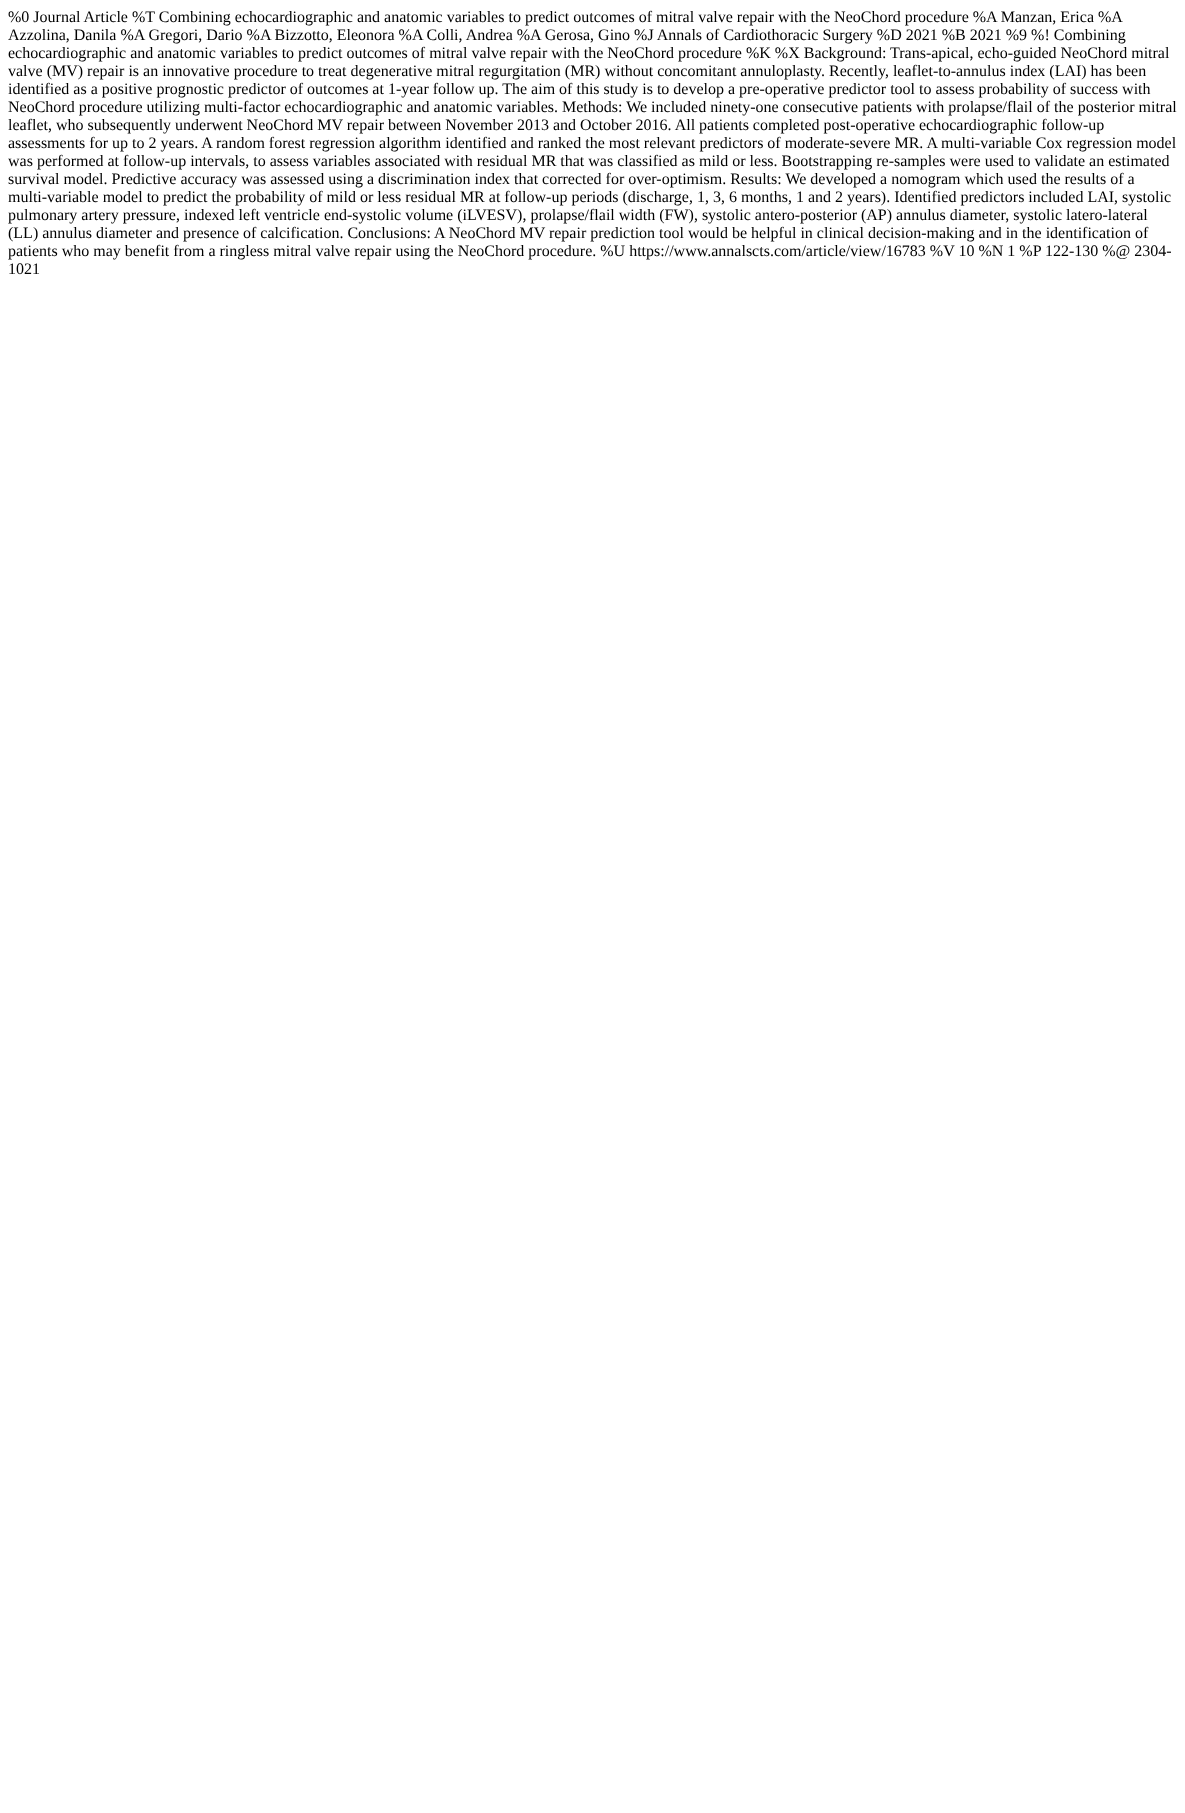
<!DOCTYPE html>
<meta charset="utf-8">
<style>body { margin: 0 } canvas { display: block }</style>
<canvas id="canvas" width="1185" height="1813"></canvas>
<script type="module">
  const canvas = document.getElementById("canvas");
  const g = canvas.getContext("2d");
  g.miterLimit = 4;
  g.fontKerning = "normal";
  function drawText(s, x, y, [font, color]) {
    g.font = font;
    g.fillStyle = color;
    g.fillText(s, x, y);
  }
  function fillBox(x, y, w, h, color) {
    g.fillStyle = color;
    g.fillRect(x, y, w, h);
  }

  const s1 = ["16px Liberation Serif", "#000000"];

  fillBox(0, 0, 1185, 1813, "#FFFFFF");
  drawText("%0 Journal Article %T Combining echocardiographic and anatomic variables to predict outcomes of mitral valve repair with the NeoChord procedure %A Manzan, Erica %A", 8, 22, s1);
  drawText("Azzolina, Danila %A Gregori, Dario %A Bizzotto, Eleonora %A Colli, Andrea %A Gerosa, Gino %J Annals of Cardiothoracic Surgery %D 2021 %B 2021 %9 %! Combining", 8, 40, s1);
  drawText("echocardiographic and anatomic variables to predict outcomes of mitral valve repair with the NeoChord procedure %K %X Background: Trans-apical, echo-guided NeoChord mitral", 8, 58, s1);
  drawText("valve (MV) repair is an innovative procedure to treat degenerative mitral regurgitation (MR) without concomitant annuloplasty. Recently, leaflet-to-annulus index (LAI) has been", 8, 76, s1);
  drawText("identified as a positive prognostic predictor of outcomes at 1-year follow up. The aim of this study is to develop a pre-operative predictor tool to assess probability of success with", 8, 94, s1);
  drawText("NeoChord procedure utilizing multi-factor echocardiographic and anatomic variables. Methods: We included ninety-one consecutive patients with prolapse/flail of the posterior mitral", 8, 112, s1);
  drawText("leaflet, who subsequently underwent NeoChord MV repair between November 2013 and October 2016. All patients completed post-operative echocardiographic follow-up", 8, 130, s1);
  drawText("assessments for up to 2 years. A random forest regression algorithm identified and ranked the most relevant predictors of moderate-severe MR. A multi-variable Cox regression model", 8, 148, s1);
  drawText("was performed at follow-up intervals, to assess variables associated with residual MR that was classified as mild or less. Bootstrapping re-samples were used to validate an estimated", 8, 166, s1);
  drawText("survival model. Predictive accuracy was assessed using a discrimination index that corrected for over-optimism. Results: We developed a nomogram which used the results of a", 8, 184, s1);
  drawText("multi-variable model to predict the probability of mild or less residual MR at follow-up periods (discharge, 1, 3, 6 months, 1 and 2 years). Identified predictors included LAI, systolic", 8, 202, s1);
  drawText("pulmonary artery pressure, indexed left ventricle end-systolic volume (iLVESV), prolapse/flail width (FW), systolic antero-posterior (AP) annulus diameter, systolic latero-lateral", 8, 220, s1);
  drawText("(LL) annulus diameter and presence of calcification. Conclusions: A NeoChord MV repair prediction tool would be helpful in clinical decision-making and in the identification of", 8, 238, s1);
  drawText("patients who may benefit from a ringless mitral valve repair using the NeoChord procedure. %U https://www.annalscts.com/article/view/16783 %V 10 %N 1 %P 122-130 %@ 2304-", 8, 256, s1);
  drawText("1021", 8, 274, s1);
</script>
